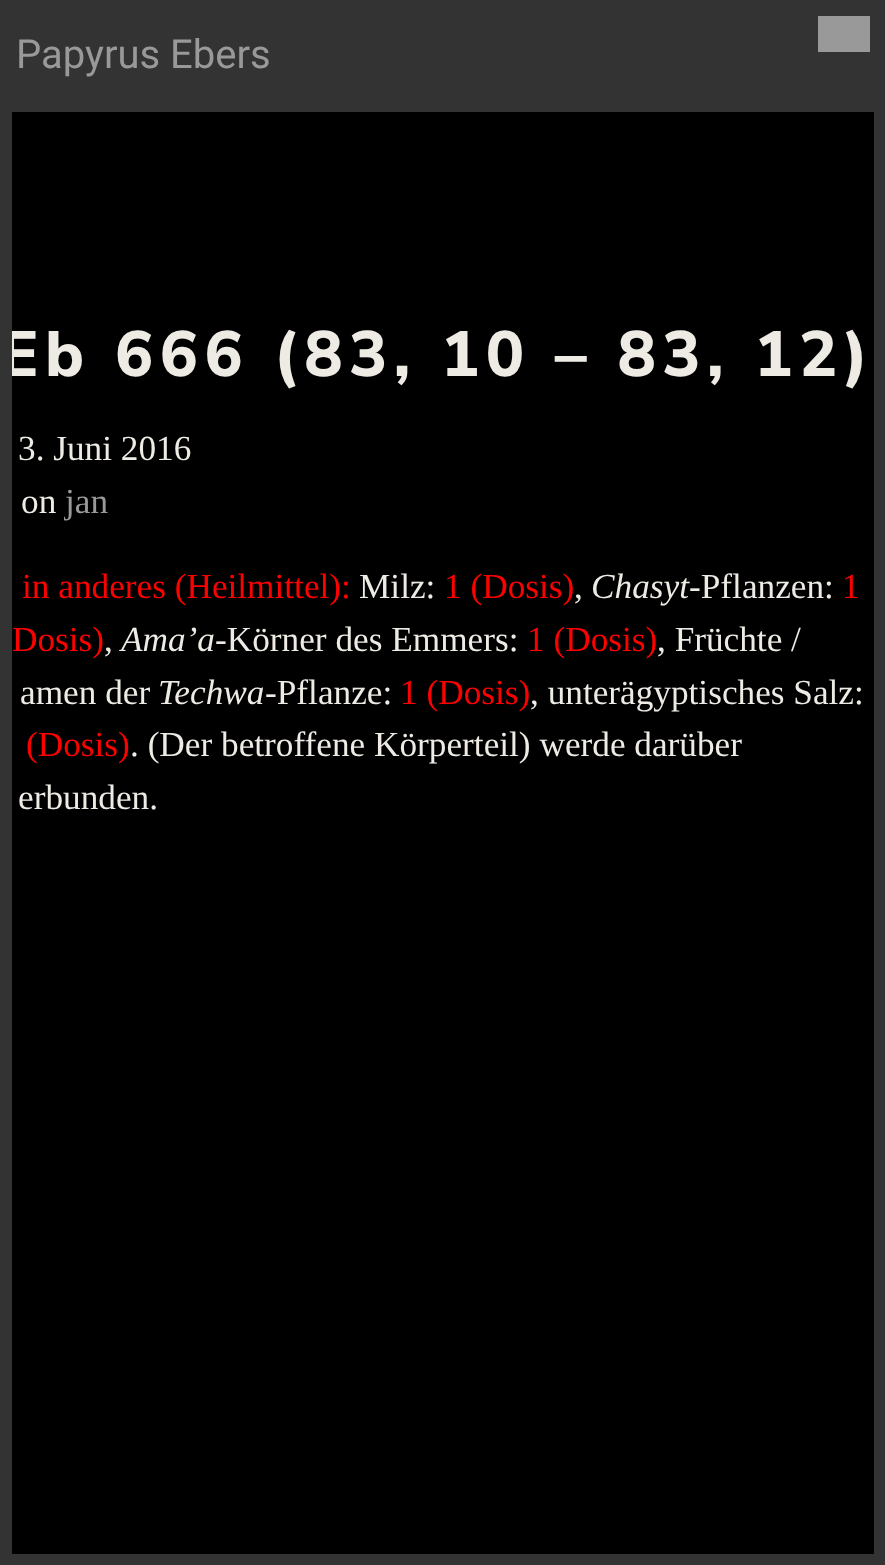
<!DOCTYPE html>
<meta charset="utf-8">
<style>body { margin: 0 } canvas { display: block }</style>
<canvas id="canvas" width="885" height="1565"></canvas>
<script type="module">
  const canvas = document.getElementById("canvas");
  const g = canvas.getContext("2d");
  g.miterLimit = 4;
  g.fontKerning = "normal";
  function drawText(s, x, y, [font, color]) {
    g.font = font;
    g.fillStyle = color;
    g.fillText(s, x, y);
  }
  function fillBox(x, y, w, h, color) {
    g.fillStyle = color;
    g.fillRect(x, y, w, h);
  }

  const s1 = ["40px Roboto", "#999999"];
  const s2 = ["800 64px Nunito Sans", "#EEEBE5"];
  const s3 = ["35.25px Liberation Serif", "#EEEBE5"];
  const s4 = ["35.25px Liberation Serif", "#999999"];
  const s5 = ["35.25px Liberation Serif", "#FF0000"];
  const s6 = ["italic 35.25px Liberation Serif", "#EEEBE5"];

  fillBox(0, 0, 885, 1565, "#000000");
  fillBox(0, 0, 885, 112, "#333333");
  fillBox(818, 16, 52, 36, "#999999");
  drawText("Papyrus Ebers", 16, 68, s1);
  g.letterSpacing = "6.4px";
  drawText("Eb 666 (83, 10 – 83, 12)", 0, 376, s2);
  fillBox(0, 112, 12, 1442, "#333333");
  fillBox(874, 112, 11, 1442, "#333333");
  g.letterSpacing = "0px";
  drawText("3. Juni 2016", 18, 460, s3);
  drawText("on", 21, 513, s3);
  drawText("jan", 65, 513, s4);
  drawText("in anderes (Heilmittel):", 22, 598, s5);
  drawText("Milz:", 359, 598, s3);
  drawText("1 (Dosis)", 444, 598, s5);
  drawText("Chasyt", 591, 598, s6);
  drawText("-Pflanzen:", 689, 598, s3);
  drawText("1", 842, 598, s5);
  drawText(",", 574, 598, s3);
  drawText("Dosis)", 12, 651, s5);
  drawText(",", 104, 651, s3);
  drawText("Ama’a", 121, 651, s6);
  drawText("-Körner des Emmers:", 215, 651, s3);
  drawText("1 (Dosis)", 527, 651, s5);
  drawText(", Früchte /", 657, 651, s3);
  drawText("amen der", 20, 704, s3);
  drawText("Techwa", 158, 704, s6);
  drawText("-Pflanze:", 265, 704, s3);
  drawText("1 (Dosis)", 400, 704, s5);
  drawText(", unterägyptisches Salz:", 530, 704, s3);
  drawText("(Dosis)", 26, 756, s5);
  drawText(". (Der betroffene Körperteil) werde darüber", 130, 756, s3);
  drawText("erbunden.", 18, 809, s3);
  fillBox(0, 1554, 885, 11, "#333333");
</script>
